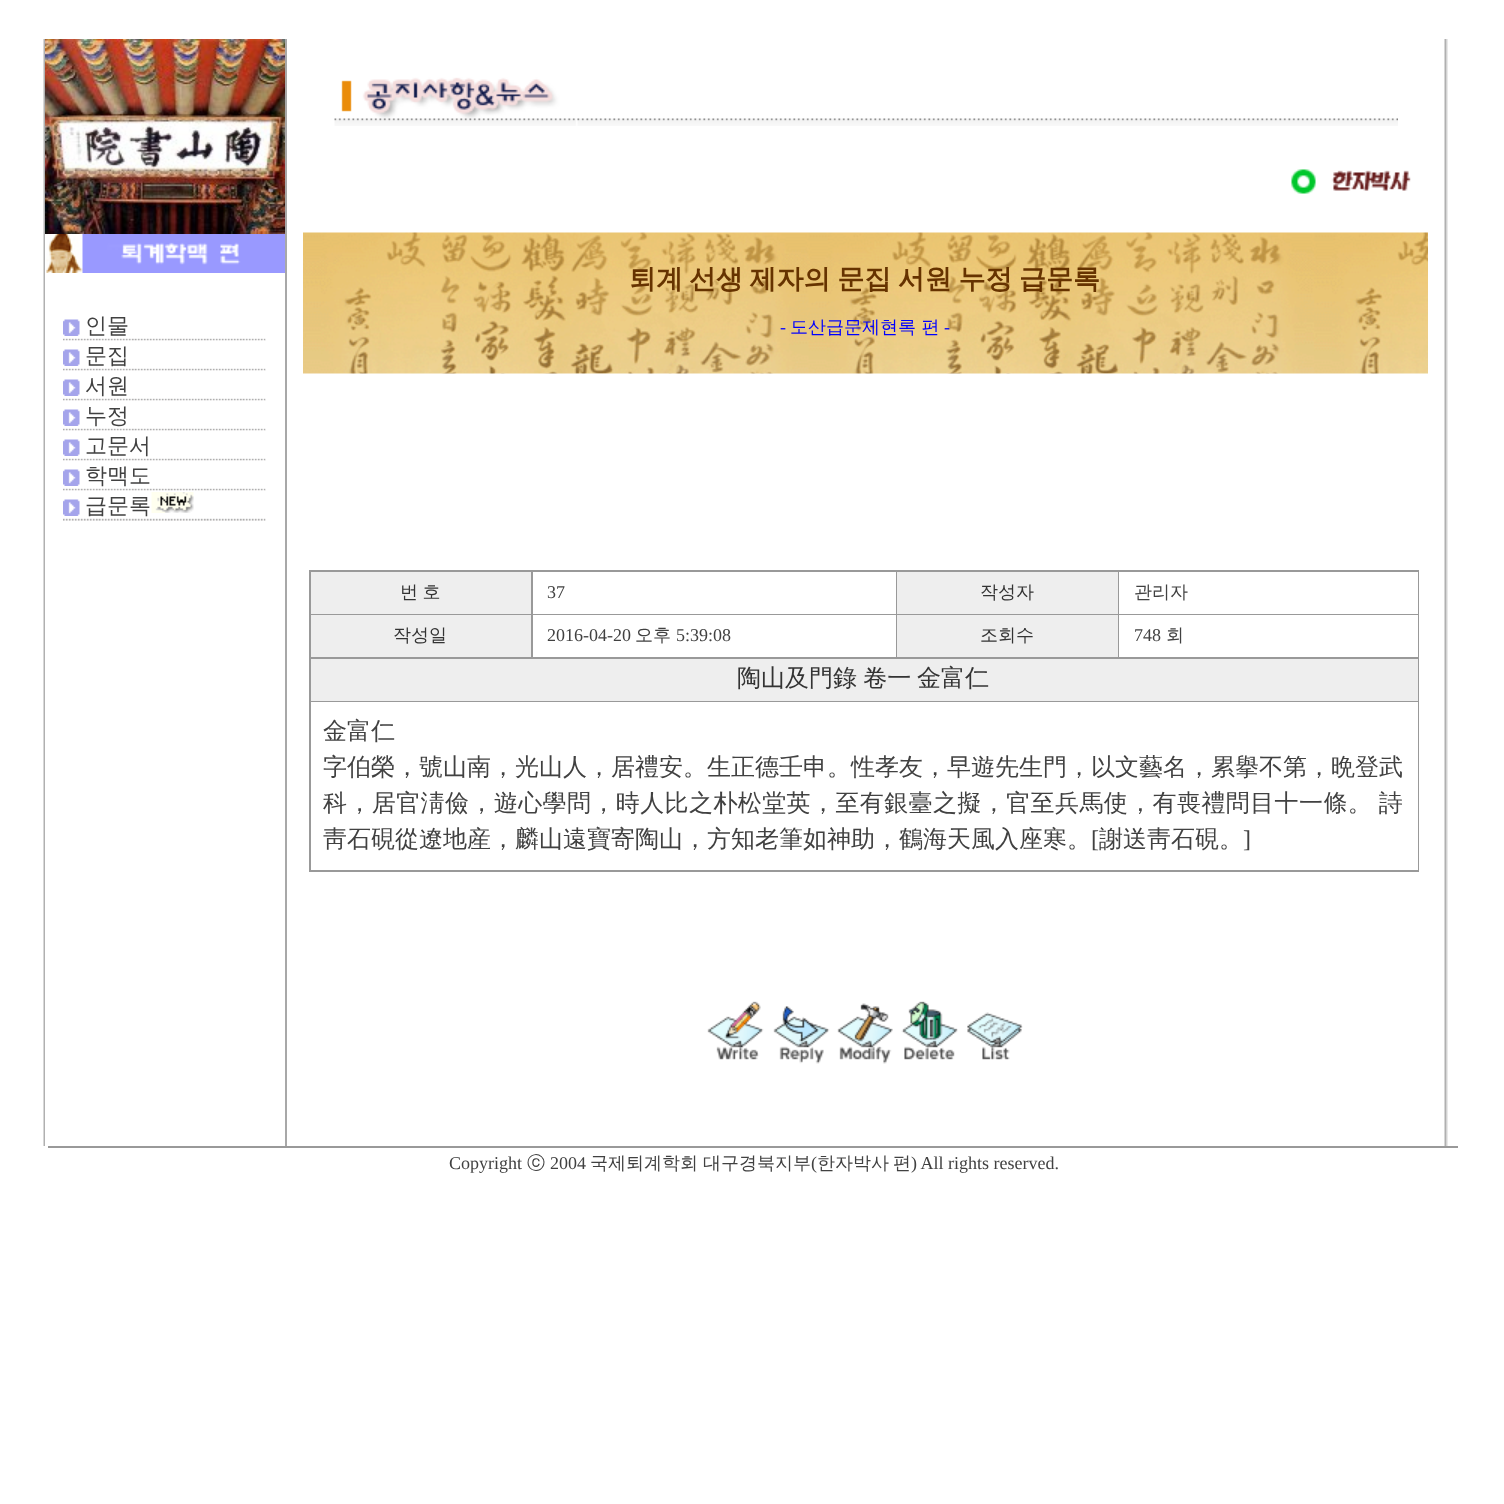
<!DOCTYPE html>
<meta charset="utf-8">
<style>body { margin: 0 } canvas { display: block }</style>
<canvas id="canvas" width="1504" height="1504"></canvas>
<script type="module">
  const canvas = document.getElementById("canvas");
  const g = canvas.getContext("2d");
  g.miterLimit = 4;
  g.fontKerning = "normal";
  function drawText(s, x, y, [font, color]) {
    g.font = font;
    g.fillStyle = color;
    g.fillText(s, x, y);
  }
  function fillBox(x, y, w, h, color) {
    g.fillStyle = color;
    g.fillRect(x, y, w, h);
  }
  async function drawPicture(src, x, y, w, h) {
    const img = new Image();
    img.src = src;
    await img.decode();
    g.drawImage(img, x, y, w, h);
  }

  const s1 = ["500 22px WenQuanYi Zen Hei", "#414141"];
  const s2 = ["bold 27px WenQuanYi Zen Hei", "#663300"];
  const s3 = ["18px Liberation Serif", "#0000FF"];
  const s4 = ["500 18px WenQuanYi Zen Hei", "#0000FF"];
  const s5 = ["500 18px WenQuanYi Zen Hei", "#333333"];
  const s6 = ["18px Liberation Serif", "#414141"];
  const s7 = ["500 18px WenQuanYi Zen Hei", "#414141"];
  const s8 = ["500 24px WenQuanYi Zen Hei", "#333333"];
  const s9 = ["500 24px WenQuanYi Zen Hei", "#414141"];
  const s10 = ["24px Liberation Serif", "#414141"];

  fillBox(0, 0, 1504, 1504, "#FFFFFF");
  await drawPicture("pic1.png", 43, 39, 2, 1107);
  fillBox(285, 39, 2, 1107, "#A8A8A8");
  await drawPicture("pic2.png", 45, 39, 240, 195);
  await drawPicture("pic3.png", 46, 234, 239, 39);
  await drawPicture("pic4.png", 63, 338, 203, 3);
  await drawPicture("pic5.png", 63, 319, 17, 17);
  drawText("인물", 85, 333, s1);
  await drawPicture("pic6.png", 63, 340, 203, 31);
  await drawPicture("pic5.png", 63, 349, 17, 17);
  drawText("문집", 85, 363, s1);
  await drawPicture("pic7.png", 63, 370, 203, 31);
  await drawPicture("pic5.png", 63, 379, 17, 17);
  drawText("서원", 85, 393, s1);
  await drawPicture("pic7.png", 63, 400, 203, 31);
  await drawPicture("pic5.png", 63, 409, 17, 17);
  drawText("누정", 85, 423, s1);
  await drawPicture("pic7.png", 63, 430, 203, 31);
  await drawPicture("pic5.png", 63, 439, 17, 17);
  drawText("고문서", 85, 453, s1);
  await drawPicture("pic7.png", 63, 460, 203, 31);
  await drawPicture("pic5.png", 63, 469, 17, 17);
  drawText("학맥도", 85, 483, s1);
  await drawPicture("pic6.png", 63, 490, 203, 31);
  await drawPicture("pic5.png", 63, 499, 17, 17);
  drawText("급문록", 85, 513, s1);
  await drawPicture("pic8.png", 151, 492, 43, 21);
  await drawPicture("pic9.png", 334, 77, 1064, 49);
  await drawPicture("pic10.png", 1291, 169, 120, 25);
  await drawPicture("pic11.png", 303, 232, 1125, 142);
  drawText("퇴계", 629, 288, s2);
  g.wordSpacing = "-1.5px";
  drawText("선생 제자의 문집 서원 누정 급문록", 689, 288, s2);
  g.wordSpacing = "0px";
  drawText("-", 780, 333, s3);
  drawText("도산급문제현록 편", 790, 333, s4);
  drawText("-", 944, 333, s3);
  fillBox(309, 570, 1110, 302, "#999999");
  fillBox(311, 572, 220, 42, "#EEEEEE");
  g.wordSpacing = "-1px";
  drawText("번 호", 400, 598, s5);
  fillBox(533, 572, 363, 42, "#FFFFFF");
  g.wordSpacing = "0px";
  drawText("37", 547, 598, s6);
  fillBox(897, 572, 221, 42, "#EEEEEE");
  drawText("작성자", 980, 598, s5);
  fillBox(1119, 572, 299, 42, "#FFFFFF");
  drawText("관리자", 1134, 598, s7);
  fillBox(311, 615, 220, 42, "#EEEEEE");
  drawText("작성일", 393, 641, s5);
  fillBox(533, 615, 363, 42, "#FFFFFF");
  drawText("2016-04-20", 547, 641, s6);
  drawText("오후", 635, 641, s7);
  drawText("5:39:08", 676, 641, s6);
  fillBox(897, 615, 221, 42, "#EEEEEE");
  drawText("조회수", 980, 641, s5);
  fillBox(1119, 615, 299, 42, "#FFFFFF");
  drawText("748", 1134, 641, s6);
  drawText("회", 1166, 641, s7);
  fillBox(311, 659, 1107, 42, "#EEEEEE");
  g.wordSpacing = "-1px";
  drawText("陶山及門錄 卷一", 737, 686, s8);
  g.wordSpacing = "0px";
  drawText("金富仁", 917, 686, s8);
  fillBox(311, 702, 1107, 168, "#FFFFFF");
  drawText("金富仁", 323, 739, s9);
  drawText("字伯榮，號山南，光山人，居禮安。生正德壬申。性孝友，早遊先生門，以文藝名，累擧不第，晩登武", 323, 775, s9);
  g.letterSpacing = "0.4px";
  g.wordSpacing = "-1px";
  drawText("科，居官淸儉，遊心學問，時人比之朴松堂英，至有銀臺之擬，官至兵馬使，有喪禮問目十一條。 詩", 323, 811, s9);
  g.letterSpacing = "0px";
  g.wordSpacing = "0px";
  drawText("靑石硯從遼地産，麟山遠寶寄陶山，方知老筆如神助，鶴海天風入座寒。", 323, 847, s9);
  drawText("[", 1091, 847, s10);
  drawText("謝送靑石硯。", 1099, 847, s9);
  drawText("]", 1243, 847, s10);
  await drawPicture("pic12.png", 707, 1001, 57, 59);
  await drawPicture("pic13.png", 773, 1006, 57, 58);
  await drawPicture("pic14.png", 837, 1003, 56, 61);
  await drawPicture("pic15.png", 901, 1001, 57, 59);
  await drawPicture("pic16.png", 967, 1012, 56, 48);
  await drawPicture("pic1.png", 1444, 39, 2, 1107);
  await drawPicture("pic17.png", 1446, 39, 2, 1107);
  fillBox(48, 1146, 1410, 2, "#999999");
  drawText("Copyright", 449, 1169, s6);
  drawText("ⓒ", 527, 1169, s7);
  drawText("2004", 550, 1169, s6);
  drawText("국제퇴계학회", 590, 1169, s7);
  drawText("대구경북지부", 703, 1169, s7);
  drawText("(", 811, 1169, s6);
  drawText("한자박사", 817, 1169, s7);
  drawText("편", 893, 1169, s7);
  drawText(") All rights reserved.", 911, 1169, s6);
</script>
